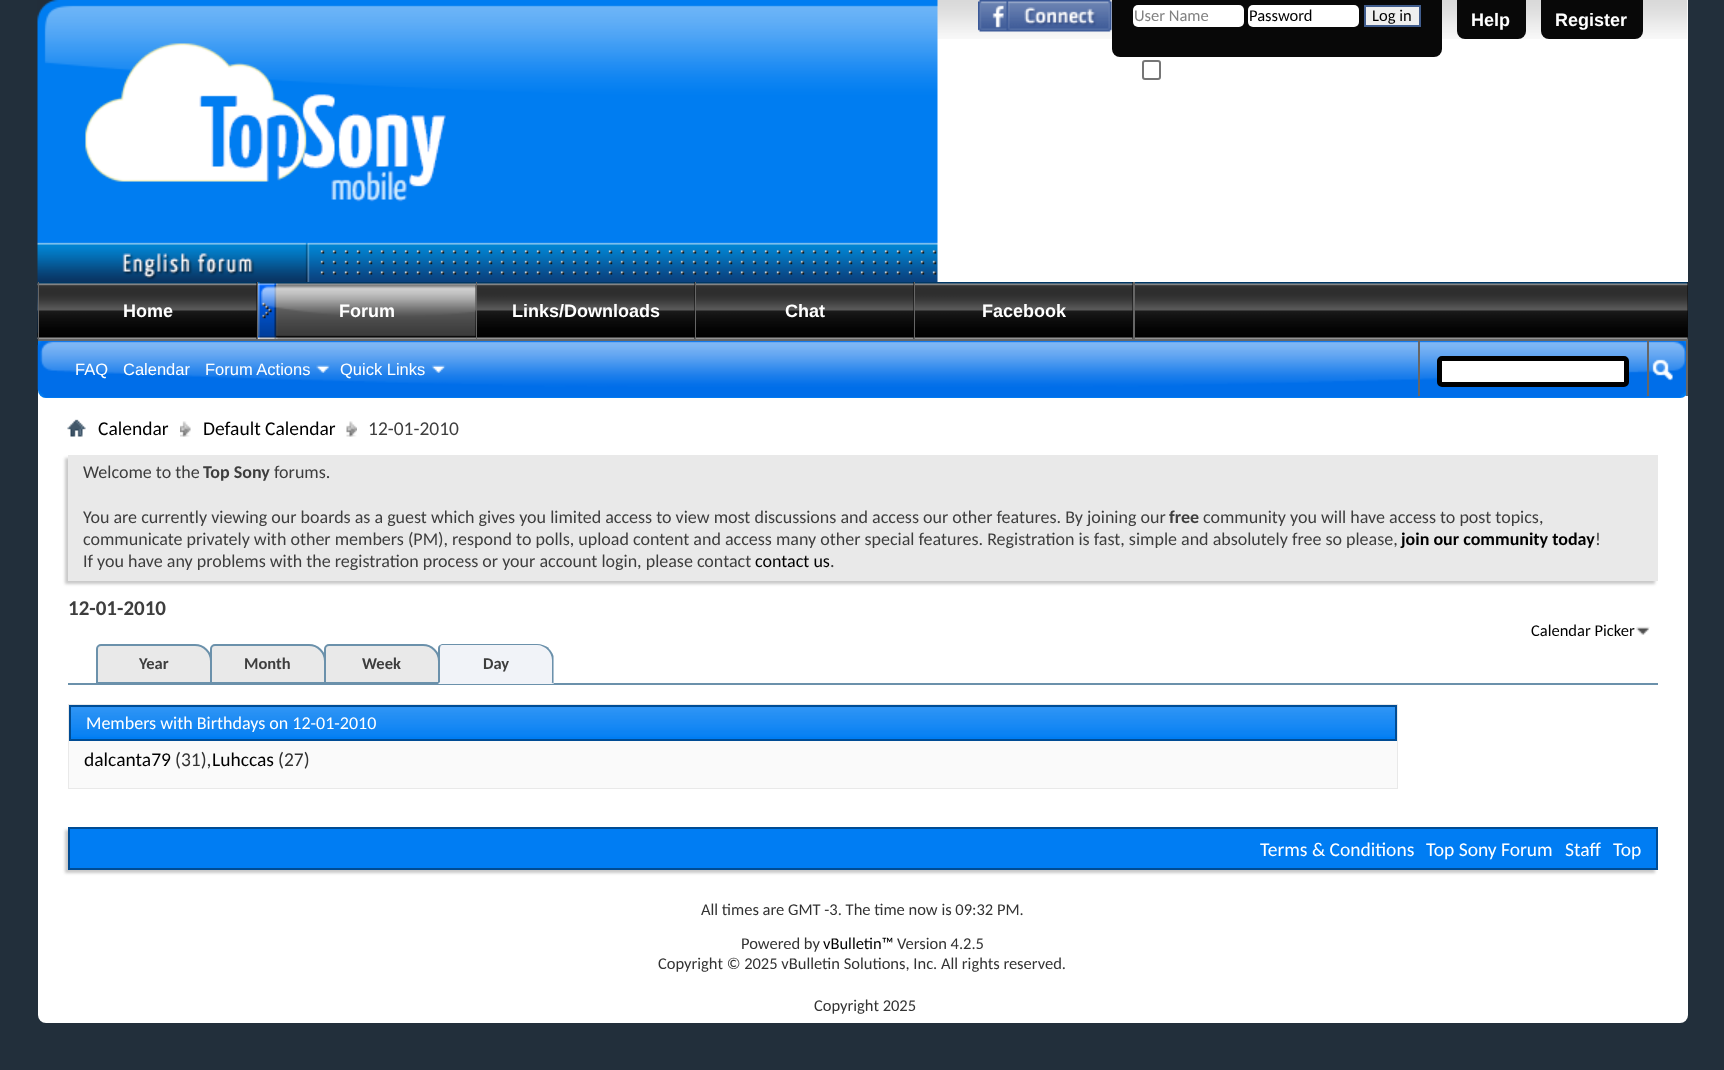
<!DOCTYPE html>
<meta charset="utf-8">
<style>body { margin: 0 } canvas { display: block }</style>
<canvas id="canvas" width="1724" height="1070"></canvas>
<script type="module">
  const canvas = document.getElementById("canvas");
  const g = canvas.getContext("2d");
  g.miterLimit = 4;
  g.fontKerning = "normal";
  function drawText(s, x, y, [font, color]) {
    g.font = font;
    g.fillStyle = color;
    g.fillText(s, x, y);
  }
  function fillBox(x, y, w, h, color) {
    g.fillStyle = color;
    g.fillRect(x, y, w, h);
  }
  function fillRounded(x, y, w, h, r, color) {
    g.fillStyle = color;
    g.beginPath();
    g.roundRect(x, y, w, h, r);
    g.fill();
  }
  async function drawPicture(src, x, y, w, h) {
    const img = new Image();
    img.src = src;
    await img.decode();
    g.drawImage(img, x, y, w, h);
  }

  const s1 = ["16.5px Carlito", "#828282"];
  const s2 = ["16.5px Carlito", "#000000"];
  const s3 = ["bold 18px Liberation Sans", "#FFFFFF"];
  const s4 = ["16.5px Liberation Sans", "#FFFFFF"];
  const s5 = ["19.5px Carlito", "#000000"];
  const s6 = ["19.5px Carlito", "#3E3E3E"];
  const s7 = ["18px Carlito", "#3E3E3E"];
  const s8 = ["bold 18px Carlito", "#3E3E3E"];
  const s9 = ["bold 18px Carlito", "#000000"];
  const s10 = ["18px Carlito", "#000000"];
  const s11 = ["bold 21px Carlito", "#3E3E3E"];
  const s12 = ["bold 16.5px Carlito", "#3E3E3E"];
  const s13 = ["18px Carlito", "#FFFFFF"];
  const s14 = ["19.5px Carlito", "#333333"];
  const s15 = ["19.5px Carlito", "#FFFFFF"];
  const s16 = ["16.5px Carlito", "#333333"];

  fillBox(0, 0, 1724, 1070, "#222F3B");
  g.fillStyle = "#FFFFFF";
  g.beginPath();
  g.roundRect(38, 0, 1650, 1023, [0, 0, 8, 8]);
  g.fill();
  await drawPicture("pic1.png", 937, 0, 751, 39);
  await drawPicture("pic2.png", 37, 0, 901, 282);
  await drawPicture("pic3.png", 978, 0, 134, 32);
  g.fillStyle = "#080808";
  g.beginPath();
  g.roundRect(1112, 0, 330, 57, [0, 0, 8, 8]);
  g.fill();
  fillRounded(1133, 5, 111, 22, 5, "#FFFFFF");
  drawText("User Name", 1134, 21, s1);
  fillRounded(1248, 5, 111, 22, 5, "#FFFFFF");
  drawText("Password", 1249, 21, s2);
  g.fillStyle = "#EFEFEF";
  g.beginPath();
  g.rect(1365, 6, 55, 20);
  g.fill();
  g.strokeStyle = "#415D8D";
  g.lineWidth = 2;
  g.stroke();
  drawText("Log in", 1372, 21, s2);
  g.beginPath();
  g.roundRect(1143, 61, 17, 18, 2);
  g.strokeStyle = "#767676";
  g.stroke();
  g.fillStyle = "#080808";
  g.beginPath();
  g.roundRect(1457, 0, 69, 39, [0, 0, 8, 8]);
  g.fill();
  drawText("Help", 1471, 26, s3);
  g.fillStyle = "#080808";
  g.beginPath();
  g.roundRect(1541, 0, 102, 39, [0, 0, 8, 8]);
  g.fill();
  drawText("Register", 1555, 26, s3);
  g.fillStyle = "#007DF3";
  g.beginPath();
  g.roundRect(38, 282, 1650, 116, [0, 0, 8, 8]);
  g.fill();
  await drawPicture("pic4.png", 37, 287, 1649, 111);
  fillBox(1687, 282, 1, 57, "#080808");
  await drawPicture("pic5.png", 37, 282, 1651, 57);
  fillBox(476, 282, 1, 57, "#666666");
  await drawPicture("pic6.png", 258, 282, 218, 57);
  drawText("Forum", 339, 317, s3);
  fillBox(38, 339, 1650, 2, "#666666");
  drawText("FAQ", 75, 375, s4);
  drawText("Calendar", 123, 375, s4);
  drawText("Forum Actions", 205, 375, s4);
  await drawPicture("pic7.png", 316, 365, 14, 8);
  drawText("Quick Links", 340, 375, s4);
  await drawPicture("pic8.png", 431, 365, 15, 8);
  fillBox(695, 282, 1, 57, "#666666");
  fillBox(694, 282, 1, 57, "#080808");
  await drawPicture("pic9.png", 477, 282, 218, 57);
  drawText("Links/Downloads", 512, 317, s3);
  fillBox(914, 282, 1, 57, "#666666");
  fillBox(913, 282, 1, 57, "#080808");
  await drawPicture("pic10.png", 696, 282, 218, 57);
  drawText("Chat", 785, 317, s3);
  fillBox(1133, 282, 2, 57, "#666666");
  fillBox(1132, 282, 1, 57, "#080808");
  await drawPicture("pic11.png", 915, 282, 218, 57);
  drawText("Facebook", 982, 317, s3);
  fillBox(257, 282, 1, 57, "#666666");
  fillBox(38, 282, 1, 57, "#666666");
  fillBox(256, 282, 1, 57, "#080808");
  await drawPicture("pic12.png", 39, 282, 218, 57);
  drawText("Home", 123, 317, s3);
  fillBox(1418, 339, 2, 57, "#666666");
  g.fillStyle = "#FFFFFF";
  g.beginPath();
  g.roundRect(1439.5, 358.5, 187, 26, 2.5);
  g.fill();
  g.strokeStyle = "#000000";
  g.lineWidth = 5;
  g.stroke();
  fillBox(1686, 339, 2, 57, "#666666");
  fillBox(1647, 339, 2, 57, "#666666");
  await drawPicture("pic13.png", 1652, 359, 21, 22);
  await drawPicture("pic14.png", 67, 419, 19, 18);
  await drawPicture("pic15.png", 180, 421, 11, 16);
  drawText("Calendar", 98, 435, s5);
  await drawPicture("pic16.png", 346, 421, 11, 16);
  drawText("Default Calendar", 203, 435, s5);
  drawText("12-01-2010", 368, 435, s6);
  g.fillStyle = "#C8C8C8";
  g.filter = "blur(1.5px)";
  g.beginPath();
  g.rect(65, 458, 1590, 126);
  g.fill();
  g.filter = "none";
  fillBox(68, 455, 1590, 126, "#E9E9E9");
  drawText("Welcome to the", 83, 478, s7);
  drawText("Top Sony", 203, 478, s8);
  drawText("forums.", 274, 478, s7);
  drawText("You are currently viewing our boards as a guest which gives you limited access to view most discussions and access our other features. By joining our", 83, 523, s7);
  drawText("free", 1169, 523, s8);
  drawText("community you will have access to post topics,", 1203, 523, s7);
  drawText("communicate privately with other members (PM), respond to polls, upload content and access many other special features. Registration is fast, simple and absolutely free so please,", 83, 545, s7);
  drawText("join our community today", 1401, 545, s9);
  drawText("!", 1595, 545, s7);
  drawText("If you have any problems with the registration process or your account login, please contact", 83, 567, s7);
  drawText("contact us", 755, 567, s10);
  drawText(".", 830, 567, s7);
  drawText("12-01-2010", 68, 615, s11);
  drawText("Calendar Picker", 1531, 636, s2);
  await drawPicture("pic17.png", 1636, 626, 14, 9);
  fillBox(68, 683, 1590, 2, "#6B91AB");
  g.fillStyle = "#E9E9E9";
  g.beginPath();
  g.roundRect(97, 645, 114, 38, [4, 16, 0, 0]);
  g.fill();
  g.strokeStyle = "#6B91AB";
  g.lineWidth = 2;
  g.stroke();
  drawText("Year", 139, 669, s12);
  g.fillStyle = "#E9E9E9";
  g.beginPath();
  g.roundRect(211, 645, 114, 38, [4, 16, 0, 0]);
  g.fill();
  g.stroke();
  drawText("Month", 244, 669, s12);
  g.fillStyle = "#E9E9E9";
  g.beginPath();
  g.roundRect(325, 645, 114, 38, [4, 16, 0, 0]);
  g.fill();
  g.stroke();
  drawText("Week", 362, 669, s12);
  g.fillStyle = "#F1F3F8";
  g.beginPath();
  g.roundRect(438, 644, 116, 40, [5, 17, 0, 0]);
  g.fill();
  g.fillStyle = "#6B91AB";
  g.beginPath();
  g.moveTo(442, 644);
  g.lineTo(440, 645);
  g.lineTo(440, 646);
  g.lineTo(442, 645);
  g.lineTo(537, 645);
  g.bezierCurveTo(541, 645, 545, 647, 548, 650);
  g.lineTo(549, 648);
  g.bezierCurveTo(546, 646, 541, 644, 537, 644);
  g.closePath();
  g.fill();
  g.beginPath();
  g.moveTo(548.5, 648.5);
  g.bezierCurveTo(551, 650.5, 552.5, 653, 553.5, 656);
  g.lineTo(553.5, 684);
  g.lineTo(551.5, 682);
  g.lineTo(552, 682);
  g.lineTo(552, 660);
  g.bezierCurveTo(552, 656, 550, 652, 547.5, 649.5);
  g.closePath();
  g.fill();
  g.beginPath();
  g.moveTo(438, 684);
  g.lineTo(440, 682);
  g.lineTo(440, 648);
  g.lineTo(440.5, 646);
  g.lineTo(439.5, 645);
  g.bezierCurveTo(438.5, 646, 438, 647, 438, 648);
  g.closePath();
  g.fill();
  drawText("Day", 483, 669, s12);
  g.strokeStyle = "#E9E9E9";
  g.strokeRect(69, 705, 1328, 83);
  fillBox(71, 707, 1324, 32, "#007DF3");
  await drawPicture("pic18.png", 71, 707, 1324, 30);
  g.strokeStyle = "#004C94";
  g.strokeRect(70, 706, 1326, 34);
  drawText("Members with Birthdays on 12-01-2010", 86, 729, s13);
  fillBox(69, 741, 1328, 47, "#FAFAFA");
  drawText("dalcanta79", 84, 766, s5);
  drawText("(31),", 175, 766, s14);
  drawText("Luhccas", 212, 766, s5);
  drawText("(27)", 278, 766, s14);
  g.fillStyle = "#C8C8C8";
  g.filter = "blur(1.5px)";
  g.beginPath();
  g.rect(65, 830, 1590, 43);
  g.fill();
  g.filter = "none";
  g.fillStyle = "#007DF3";
  g.beginPath();
  g.rect(69, 828, 1588, 41);
  g.fill();
  g.stroke();
  drawText("Terms & Conditions", 1260, 856, s15);
  drawText("Top Sony Forum", 1426, 856, s15);
  drawText("Staff", 1565, 856, s15);
  drawText("Top", 1613, 856, s15);
  drawText("All times are GMT -3. The time now is 09:32 PM.", 701, 915, s16);
  drawText("Powered by", 741, 949, s16);
  drawText("vBulletin™", 823, 949, s2);
  drawText("Version 4.2.5", 897, 949, s16);
  drawText("Copyright © 2025 vBulletin Solutions, Inc. All rights reserved.", 658, 969, s16);
  drawText("Copyright 2025", 814, 1011, s16);
</script>
